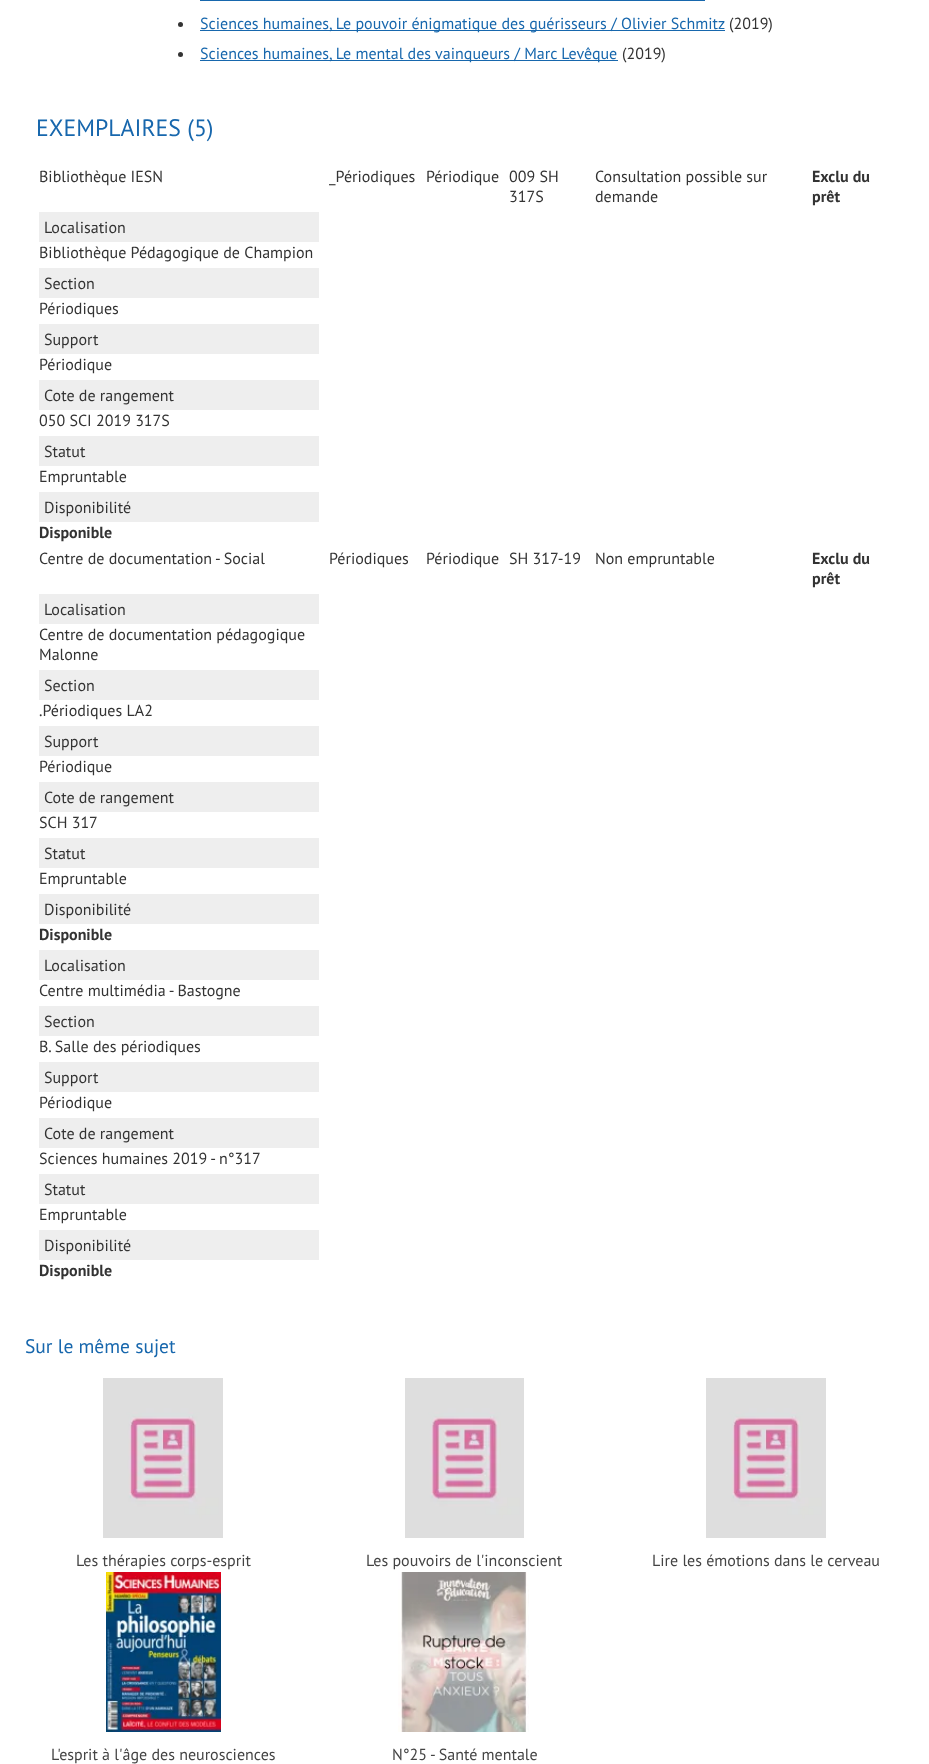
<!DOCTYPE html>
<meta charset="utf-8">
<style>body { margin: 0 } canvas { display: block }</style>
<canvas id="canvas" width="929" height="1764"></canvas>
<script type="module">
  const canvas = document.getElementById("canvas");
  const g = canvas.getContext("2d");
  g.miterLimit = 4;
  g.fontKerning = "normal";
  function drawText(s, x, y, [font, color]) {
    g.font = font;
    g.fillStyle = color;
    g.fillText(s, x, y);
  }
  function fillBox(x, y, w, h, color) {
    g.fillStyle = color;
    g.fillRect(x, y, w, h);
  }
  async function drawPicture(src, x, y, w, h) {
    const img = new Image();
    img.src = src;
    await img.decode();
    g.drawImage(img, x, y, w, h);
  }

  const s1 = ["16px PT Sans", "#1767AD"];
  const s2 = ["16px PT Sans", "#333333"];
  const s3 = ["23.75px PT Sans", "#1767AD"];
  const s4 = ["bold 16px PT Sans", "#333333"];
  const s5 = ["19.5px PT Sans", "#1767AD"];
  const s6 = ["16px PT Sans", "#444444"];

  fillBox(0, 0, 929, 1764, "#FFFFFF");
  fillBox(200, 0, 505, 1, "#1767AD");
  g.fillStyle = "#333333";
  g.beginPath();
  g.arc(180.5, 24.5, 2.5, 0, Math.PI * 2);
  g.fill();
  fillBox(200, 30, 525, 1, "#1767AD");
  drawText("Sciences humaines, Le pouvoir énigmatique des guérisseurs /", 200, 29, s1);
  drawText("Olivier Schmitz", 621, 29, s1);
  drawText("(2019)", 729, 29, s2);
  g.beginPath();
  g.arc(180.5, 54.5, 2.5, 0, Math.PI * 2);
  g.fill();
  fillBox(200, 60, 418, 1, "#1767AD");
  drawText("Sciences humaines, Le mental des vainqueurs / Marc Levêque", 200, 59, s1);
  drawText("(2019)", 622, 59, s2);
  drawText("EXEMPLAIRES (5)", 36, 136, s3);
  drawText("Bibliothèque IESN", 39, 182, s2);
  drawText("_Périodiques", 329, 182, s2);
  drawText("Périodique", 426, 182, s2);
  drawText("009 SH", 509, 182, s2);
  drawText("317S", 509, 202, s2);
  drawText("Consultation possible sur", 595, 182, s2);
  drawText("demande", 595, 202, s2);
  drawText("Exclu du", 812, 182, s4);
  drawText("prêt", 812, 202, s4);
  fillBox(39, 212, 280, 30, "#EEEEEE");
  drawText("Localisation", 44, 233, s2);
  drawText("Bibliothèque Pédagogique de Champion", 39, 258, s2);
  fillBox(39, 268, 280, 30, "#EEEEEE");
  drawText("Section", 44, 289, s2);
  drawText("Périodiques", 39, 314, s2);
  fillBox(39, 324, 280, 30, "#EEEEEE");
  drawText("Support", 44, 345, s2);
  drawText("Périodique", 39, 370, s2);
  fillBox(39, 380, 280, 30, "#EEEEEE");
  drawText("Cote de rangement", 44, 401, s2);
  drawText("050 SCI 2019 317S", 39, 426, s2);
  fillBox(39, 436, 280, 30, "#EEEEEE");
  drawText("Statut", 44, 457, s2);
  drawText("Empruntable", 39, 482, s2);
  fillBox(39, 492, 280, 30, "#EEEEEE");
  drawText("Disponibilité", 44, 513, s2);
  drawText("Disponible", 39, 538, s4);
  drawText("Centre de documentation - Social", 39, 564, s2);
  drawText("Périodiques", 329, 564, s2);
  drawText("Périodique", 426, 564, s2);
  drawText("SH 317-19", 509, 564, s2);
  drawText("Non empruntable", 595, 564, s2);
  drawText("Exclu du", 812, 564, s4);
  drawText("prêt", 812, 584, s4);
  fillBox(39, 594, 280, 30, "#EEEEEE");
  drawText("Localisation", 44, 615, s2);
  drawText("Centre de documentation pédagogique", 39, 640, s2);
  drawText("Malonne", 39, 660, s2);
  fillBox(39, 670, 280, 30, "#EEEEEE");
  drawText("Section", 44, 691, s2);
  drawText(".Périodiques LA2", 39, 716, s2);
  fillBox(39, 726, 280, 30, "#EEEEEE");
  drawText("Support", 44, 747, s2);
  drawText("Périodique", 39, 772, s2);
  fillBox(39, 782, 280, 30, "#EEEEEE");
  drawText("Cote de rangement", 44, 803, s2);
  drawText("SCH 317", 39, 828, s2);
  fillBox(39, 838, 280, 30, "#EEEEEE");
  drawText("Statut", 44, 859, s2);
  drawText("Empruntable", 39, 884, s2);
  fillBox(39, 894, 280, 30, "#EEEEEE");
  drawText("Disponibilité", 44, 915, s2);
  drawText("Disponible", 39, 940, s4);
  fillBox(39, 950, 280, 30, "#EEEEEE");
  drawText("Localisation", 44, 971, s2);
  drawText("Centre multimédia - Bastogne", 39, 996, s2);
  fillBox(39, 1006, 280, 30, "#EEEEEE");
  drawText("Section", 44, 1027, s2);
  drawText("B. Salle des périodiques", 39, 1052, s2);
  fillBox(39, 1062, 280, 30, "#EEEEEE");
  drawText("Support", 44, 1083, s2);
  drawText("Périodique", 39, 1108, s2);
  fillBox(39, 1118, 280, 30, "#EEEEEE");
  drawText("Cote de rangement", 44, 1139, s2);
  drawText("Sciences humaines 2019 - n°317", 39, 1164, s2);
  fillBox(39, 1174, 280, 30, "#EEEEEE");
  drawText("Statut", 44, 1195, s2);
  drawText("Empruntable", 39, 1220, s2);
  fillBox(39, 1230, 280, 30, "#EEEEEE");
  drawText("Disponibilité", 44, 1251, s2);
  drawText("Disponible", 39, 1276, s4);
  drawText("Sur le même sujet", 25, 1353, s5);
  await drawPicture("pic1.png", 103, 1378, 120, 160);
  drawText("Les thérapies corps-esprit", 76, 1566, s6);
  await drawPicture("pic2.png", 405, 1378, 119, 160);
  drawText("Les pouvoirs de l'inconscient", 366, 1566, s6);
  await drawPicture("pic3.png", 706, 1378, 120, 160);
  drawText("Lire les émotions dans le cerveau", 652, 1566, s6);
  await drawPicture("pic4.png", 106, 1572, 115, 160);
  drawText("L'esprit à l'âge des neurosciences", 51, 1760, s6);
  await drawPicture("pic5.png", 398, 1572, 131, 160);
  drawText("N°25 - Santé mentale", 392, 1760, s6);
</script>
